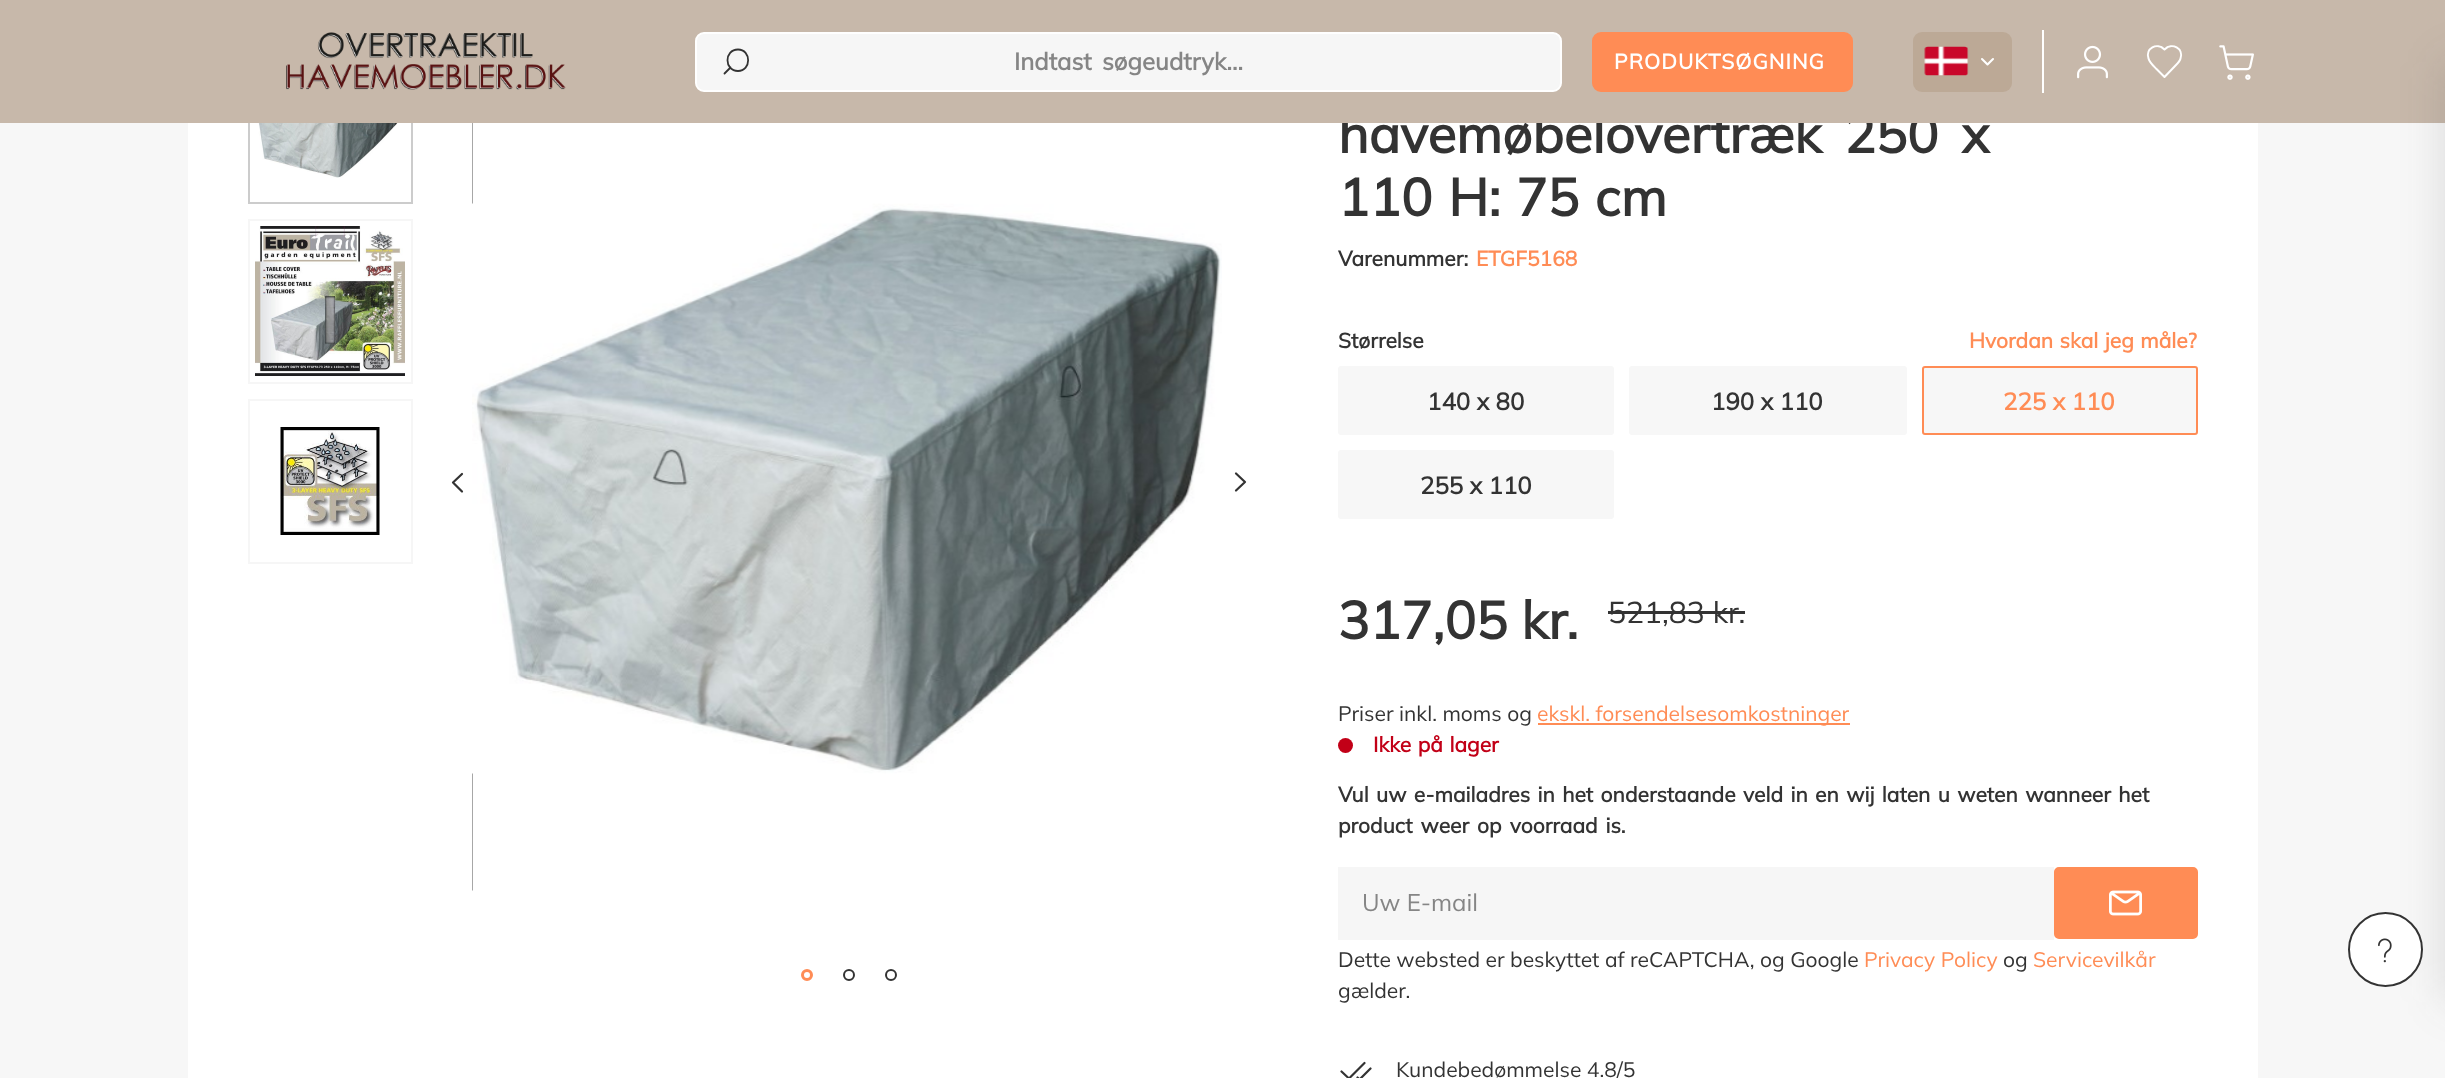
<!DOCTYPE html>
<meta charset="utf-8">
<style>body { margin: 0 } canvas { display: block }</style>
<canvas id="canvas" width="2445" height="1078"></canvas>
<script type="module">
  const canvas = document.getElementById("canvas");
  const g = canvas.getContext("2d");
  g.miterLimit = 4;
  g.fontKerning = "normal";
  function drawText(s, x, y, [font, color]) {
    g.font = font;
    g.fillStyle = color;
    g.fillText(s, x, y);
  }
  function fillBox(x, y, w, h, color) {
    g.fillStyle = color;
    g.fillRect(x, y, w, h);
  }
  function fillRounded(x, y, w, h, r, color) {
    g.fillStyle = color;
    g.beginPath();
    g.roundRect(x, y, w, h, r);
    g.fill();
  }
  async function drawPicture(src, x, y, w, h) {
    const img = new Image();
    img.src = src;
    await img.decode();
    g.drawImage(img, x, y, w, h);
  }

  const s1 = ["bold 52.5px Mulish", "#333333"];
  const s2 = ["bold 24px Mulish", "#858585"];
  const s3 = ["bold 21px Mulish", "#FFFFFF"];
  const s4 = ["bold 21px Mulish", "#333333"];
  const s5 = ["bold 21px Mulish", "#FF8C55"];
  const s6 = ["bold 24px Mulish", "#333333"];
  const s7 = ["bold 24px Mulish", "#FF8C55"];
  const s8 = ["30px Mulish", "#333333"];
  const s9 = ["21px Mulish", "#333333"];
  const s10 = ["21px Mulish", "#FF8C55"];
  const s11 = ["bold 21px Mulish", "#C20017"];
  const s12 = ["24px Mulish", "#858585"];

  fillBox(0, 0, 2445, 1078, "#F7F7F7");
  fillBox(188, 123, 2070, 955, "#FFFFFF");
  g.strokeStyle = "#CCCCCC";
  g.lineWidth = 2;
  g.strokeRect(249, 40, 163, 163);
  g.wordSpacing = "9px";
  drawText("havemøbelovertræk 250 x", 1338, 153, s1);
  fillBox(0, 0, 2445, 123, "#C7B8AA");
  await drawPicture("pic1.png", 286, 32, 280, 58);
  g.fillStyle = "#F6F6F6";
  g.beginPath();
  g.roundRect(696, 33, 865, 58, 8);
  g.fill();
  g.strokeStyle = "#FFFFFF";
  g.stroke();
  g.beginPath();
  g.moveTo(738, 71);
  g.bezierCurveTo(724, 71, 724, 49.5, 738, 49.5);
  g.bezierCurveTo(751.5, 49.5, 751.5, 71, 738, 71);
  g.closePath();
  g.moveTo(724.5, 73.5);
  g.lineTo(730.5, 67.5);
  g.strokeStyle = "#333333";
  g.lineWidth = 1.8;
  g.lineCap = "round";
  g.lineJoin = "round";
  g.stroke();
  g.wordSpacing = "4px";
  drawText("Indtast søgeudtryk...", 1014, 70, s2);
  g.fillStyle = "#FF8C55";
  g.beginPath();
  g.roundRect(1593, 33, 259, 58, 8);
  g.fill();
  g.strokeStyle = "#FF8C55";
  g.lineWidth = 2;
  g.lineJoin = "miter";
  g.stroke();
  g.letterSpacing = "1px";
  g.wordSpacing = "0px";
  drawText("PRODUKTSØGNING", 1614, 69, s3);
  fillRounded(1913, 32, 99, 60, 9, "#BCA996");
  await drawPicture("pic2.png", 1924, 46, 45, 30);
  g.beginPath();
  g.moveTo(1982, 59);
  g.lineTo(1987.5, 64.5);
  g.lineTo(1993, 59);
  g.strokeStyle = "#FFFFFF";
  g.lineWidth = 2.1;
  g.lineJoin = "round";
  g.stroke();
  fillBox(2042, 30, 2, 63, "#FFFFFF");
  await drawPicture("pic3.png", 2077, 45, 31, 34);
  g.beginPath();
  g.moveTo(2176, 65);
  g.bezierCurveTo(2178, 63, 2180, 61, 2180.5, 58.5);
  g.bezierCurveTo(2184, 48.5, 2172, 42, 2164.5, 49.5);
  g.bezierCurveTo(2157, 42, 2145, 48.5, 2148.5, 58.5);
  g.bezierCurveTo(2149.5, 62.5, 2153.5, 66, 2156.5, 69);
  g.lineTo(2164.5, 77);
  g.closePath();
  g.lineWidth = 2;
  g.stroke();
  await drawPicture("pic4.png", 2219, 45, 35, 35);
  g.fillStyle = "rgba(51, 51, 51, 0.15)";
  g.filter = "blur(22.5px)";
  g.beginPath();
  g.roundRect(2445, 62, 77, 940, 9);
  g.fill();
  g.filter = "none";
  g.fillStyle = "#FFFFFF";
  g.beginPath();
  g.arc(2385.5, 949.5, 36.5, 0, Math.PI * 2);
  g.fill();
  g.strokeStyle = "#333333";
  g.stroke();
  await drawPicture("pic5.png", 2378, 938, 14, 25);
  await drawPicture("pic6.png", 255, 123, 150, 55);
  g.strokeStyle = "#F6F6F6";
  g.lineJoin = "miter";
  g.strokeRect(249, 220, 163, 163);
  await drawPicture("pic7.png", 255, 226, 150, 150);
  g.strokeRect(249, 400, 163, 163);
  await drawPicture("pic8.png", 280, 427, 100, 108);
  await drawPicture("pic9.png", 472, 123, 1, 768);
  await drawPicture("pic10.png", 472, 203, 750, 571);
  g.strokeStyle = "#FFFFFF";
  g.strokeRect(436, 442, 43, 96);
  g.beginPath();
  g.moveTo(462, 491.5);
  g.lineTo(453, 482.5);
  g.lineTo(462, 474);
  g.strokeStyle = "#333333";
  g.lineWidth = 2.2;
  g.lineJoin = "round";
  g.stroke();
  g.beginPath();
  g.moveTo(1236, 490.5);
  g.lineTo(1245, 482);
  g.lineTo(1236, 473.5);
  g.stroke();
  g.beginPath();
  g.arc(807, 975, 4.5, 0, Math.PI * 2);
  g.strokeStyle = "#FF8C55";
  g.lineWidth = 3;
  g.stroke();
  g.beginPath();
  g.arc(849, 975, 5, 0, Math.PI * 2);
  g.strokeStyle = "#333333";
  g.lineWidth = 2;
  g.stroke();
  g.beginPath();
  g.arc(891, 975, 5, 0, Math.PI * 2);
  g.stroke();
  g.letterSpacing = "0px";
  g.wordSpacing = "2px";
  drawText("110 H: 75 cm", 1338, 216, s1);
  g.wordSpacing = "0px";
  drawText("Varenummer:", 1338, 266, s4);
  drawText("ETGF5168", 1476, 266, s5);
  drawText("Størrelse", 1338, 348, s4);
  g.wordSpacing = "1px";
  drawText("Hvordan skal jeg måle?", 1969, 348, s5);
  fillRounded(1338, 366, 276, 69, 3, "#F7F7F7");
  g.wordSpacing = "0px";
  drawText("140 x 80", 1427, 410, s6);
  fillRounded(1629, 366, 278, 69, 3, "#F7F7F7");
  drawText("190 x 110", 1711, 410, s6);
  g.fillStyle = "#F7F7F7";
  g.beginPath();
  g.roundRect(1923, 367, 274, 67, 2);
  g.fill();
  g.strokeStyle = "#FF8C55";
  g.lineJoin = "miter";
  g.stroke();
  drawText("225 x 110", 2003, 410, s7);
  fillRounded(1338, 450, 276, 69, 3, "#F7F7F7");
  drawText("255 x 110", 1420, 494, s6);
  drawText("317,05 kr.", 1338, 639, s1);
  drawText("521,83 kr.", 1608, 623, s8);
  fillBox(1608, 611, 137, 3, "#333333");
  drawText("Priser inkl. moms og", 1338, 721, s9);
  fillBox(1538, 723, 312, 2, "#FF8C55");
  drawText("ekskl. forsendelsesomkostninger", 1537, 721, s10);
  g.fillStyle = "#C20017";
  g.beginPath();
  g.arc(1345.5, 745.5, 7.5, 0, Math.PI * 2);
  g.fill();
  g.wordSpacing = "1px";
  drawText("Ikke på lager", 1373, 752, s11);
  g.wordSpacing = "1.9px";
  drawText("Vul uw e-mailadres in het onderstaande veld in en wij laten u weten wanneer het", 1338, 802, s4);
  g.wordSpacing = "2.5px";
  drawText("product weer op voorraad is.", 1338, 833, s4);
  fillBox(1340, 869, 714, 69, "#F6F6F6");
  fillBox(1338, 867, 716, 2, "#F6F6F6");
  fillBox(1338, 938, 716, 2, "#F6F6F6");
  fillBox(1338, 867, 2, 72, "#F6F6F6");
  g.wordSpacing = "0px";
  drawText("Uw E-mail", 1362, 911, s12);
  g.fillStyle = "#FF8C55";
  g.beginPath();
  g.roundRect(2055, 868, 142, 70, 4);
  g.fill();
  g.stroke();
  await drawPicture("pic11.png", 2109, 890, 33, 26);
  drawText("Dette websted er beskyttet af reCAPTCHA, og Google", 1338, 967, s9);
  drawText("Privacy Policy", 1864, 967, s10);
  drawText("og", 2003, 967, s9);
  drawText("Servicevilkår", 2033, 967, s10);
  drawText("gælder.", 1338, 998, s9);
  g.beginPath();
  g.moveTo(1364.5, 1063);
  g.lineTo(1349, 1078.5);
  g.lineTo(1341.5, 1071.5);
  g.moveTo(1370.5, 1068.5);
  g.lineTo(1359.5, 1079.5);
  g.lineTo(1357.5, 1077.5);
  g.strokeStyle = "#333333";
  g.lineWidth = 2.2;
  g.lineJoin = "round";
  g.stroke();
  drawText("Kundebedømmelse 4.8/5", 1396, 1077, s9);
</script>
